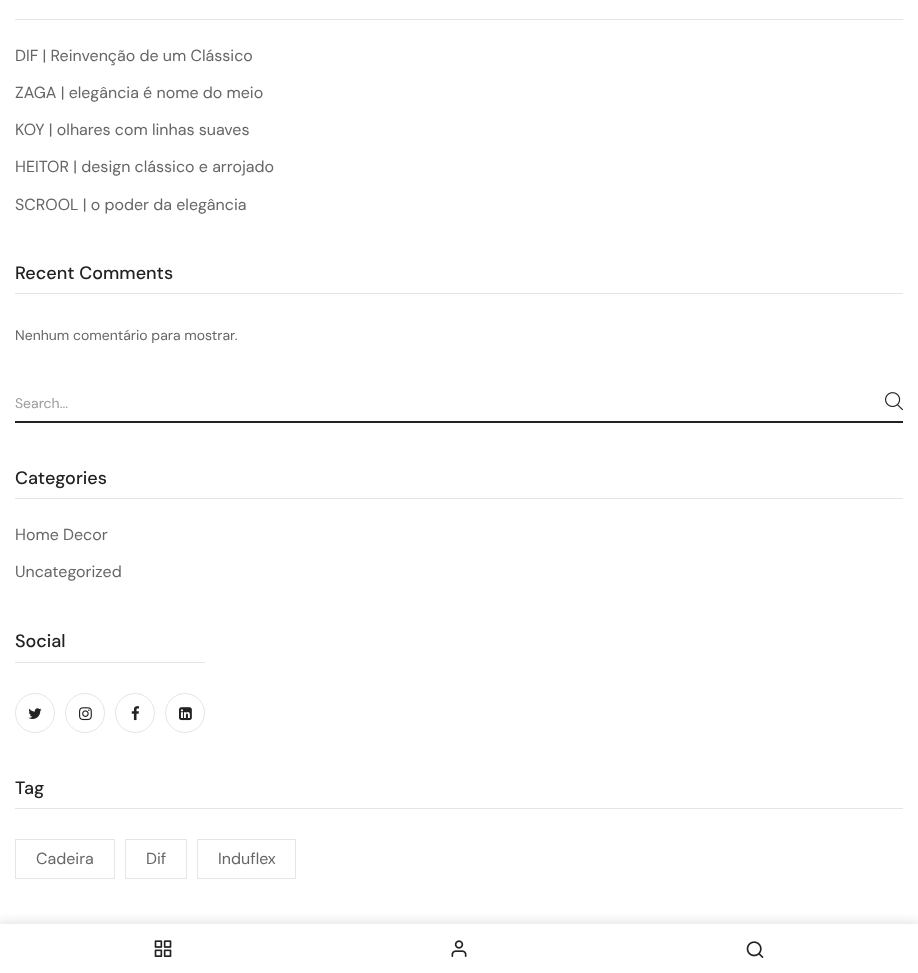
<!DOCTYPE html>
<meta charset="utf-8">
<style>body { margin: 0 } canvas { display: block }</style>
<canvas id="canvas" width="918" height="973"></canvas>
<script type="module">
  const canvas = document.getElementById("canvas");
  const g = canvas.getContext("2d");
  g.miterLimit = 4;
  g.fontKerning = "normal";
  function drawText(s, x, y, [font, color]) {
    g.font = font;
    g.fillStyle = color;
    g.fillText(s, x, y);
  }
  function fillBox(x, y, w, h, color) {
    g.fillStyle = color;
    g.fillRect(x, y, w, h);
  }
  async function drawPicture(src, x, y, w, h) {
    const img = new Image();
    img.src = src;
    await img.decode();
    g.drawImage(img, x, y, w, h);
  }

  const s1 = ["16px DM Sans", "#666666"];
  const s2 = ["500 18px DM Sans", "#222222"];
  const s3 = ["14px DM Sans", "#666666"];
  const s4 = ["14px DM Sans", "#9B9B9B"];

  fillBox(0, 0, 918, 973, "#FFFFFF");
  fillBox(15, 19, 888, 1, "#E4E4E4");
  drawText("DIF | Reinvenção de um Clássico", 15, 61, s1);
  drawText("ZAGA | elegância é nome do meio", 15, 98, s1);
  drawText("KOY | olhares com linhas suaves", 15, 135, s1);
  drawText("HEITOR | design clássico e arrojado", 15, 172, s1);
  drawText("SCROOL | o poder da elegância", 15, 210, s1);
  fillBox(15, 293, 888, 1, "#E4E4E4");
  drawText("Recent Comments", 15, 279, s2);
  drawText("Nenhum comentário para mostrar.", 15, 340, s3);
  fillBox(15, 421, 888, 2, "#222222");
  drawText("Search...", 15, 408, s4);
  await drawPicture("pic1.png", 885, 392, 18, 19);
  fillBox(15, 498, 888, 1, "#E4E4E4");
  drawText("Categories", 15, 484, s2);
  drawText("Home Decor", 15, 540, s1);
  drawText("Uncategorized", 15, 577, s1);
  fillBox(15, 662, 190, 1, "#E4E4E4");
  drawText("Social", 15, 647, s2);
  g.beginPath();
  g.arc(35, 713, 19.5, 0, Math.PI * 2);
  g.strokeStyle = "#E5E5E5";
  g.stroke();
  await drawPicture("pic2.png", 28, 708, 14, 11);
  g.beginPath();
  g.arc(85, 713, 19.5, 0, Math.PI * 2);
  g.stroke();
  await drawPicture("pic3.png", 79, 707, 13, 14);
  g.beginPath();
  g.arc(135, 713, 19.5, 0, Math.PI * 2);
  g.stroke();
  await drawPicture("pic4.png", 131, 706, 9, 15);
  g.beginPath();
  g.arc(185, 713, 19.5, 0, Math.PI * 2);
  g.stroke();
  await drawPicture("pic5.png", 179, 707, 13, 14);
  fillBox(15, 808, 888, 1, "#E4E4E4");
  drawText("Tag", 15, 794, s2);
  g.strokeRect(15.5, 839.5, 99, 39);
  drawText("Cadeira", 36, 864, s1);
  g.strokeRect(125.5, 839.5, 61, 39);
  drawText("Dif", 146, 864, s1);
  g.strokeRect(197.5, 839.5, 98, 39);
  drawText("Induflex", 218, 864, s1);
  g.save();
  g.beginPath();
  g.rect(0, 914, 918, 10);
  g.clip();
  g.fillStyle = "rgba(143, 143, 143, 0.3)";
  g.filter = "blur(6px)";
  g.beginPath();
  g.rect(-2, 923, 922, 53);
  g.fill();
  g.filter = "none";
  g.restore();
  await drawPicture("pic6.png", 154, 940, 18, 17);
  await drawPicture("pic7.png", 451, 940, 16, 17);
  await drawPicture("pic8.png", 746, 941, 18, 17);
</script>
